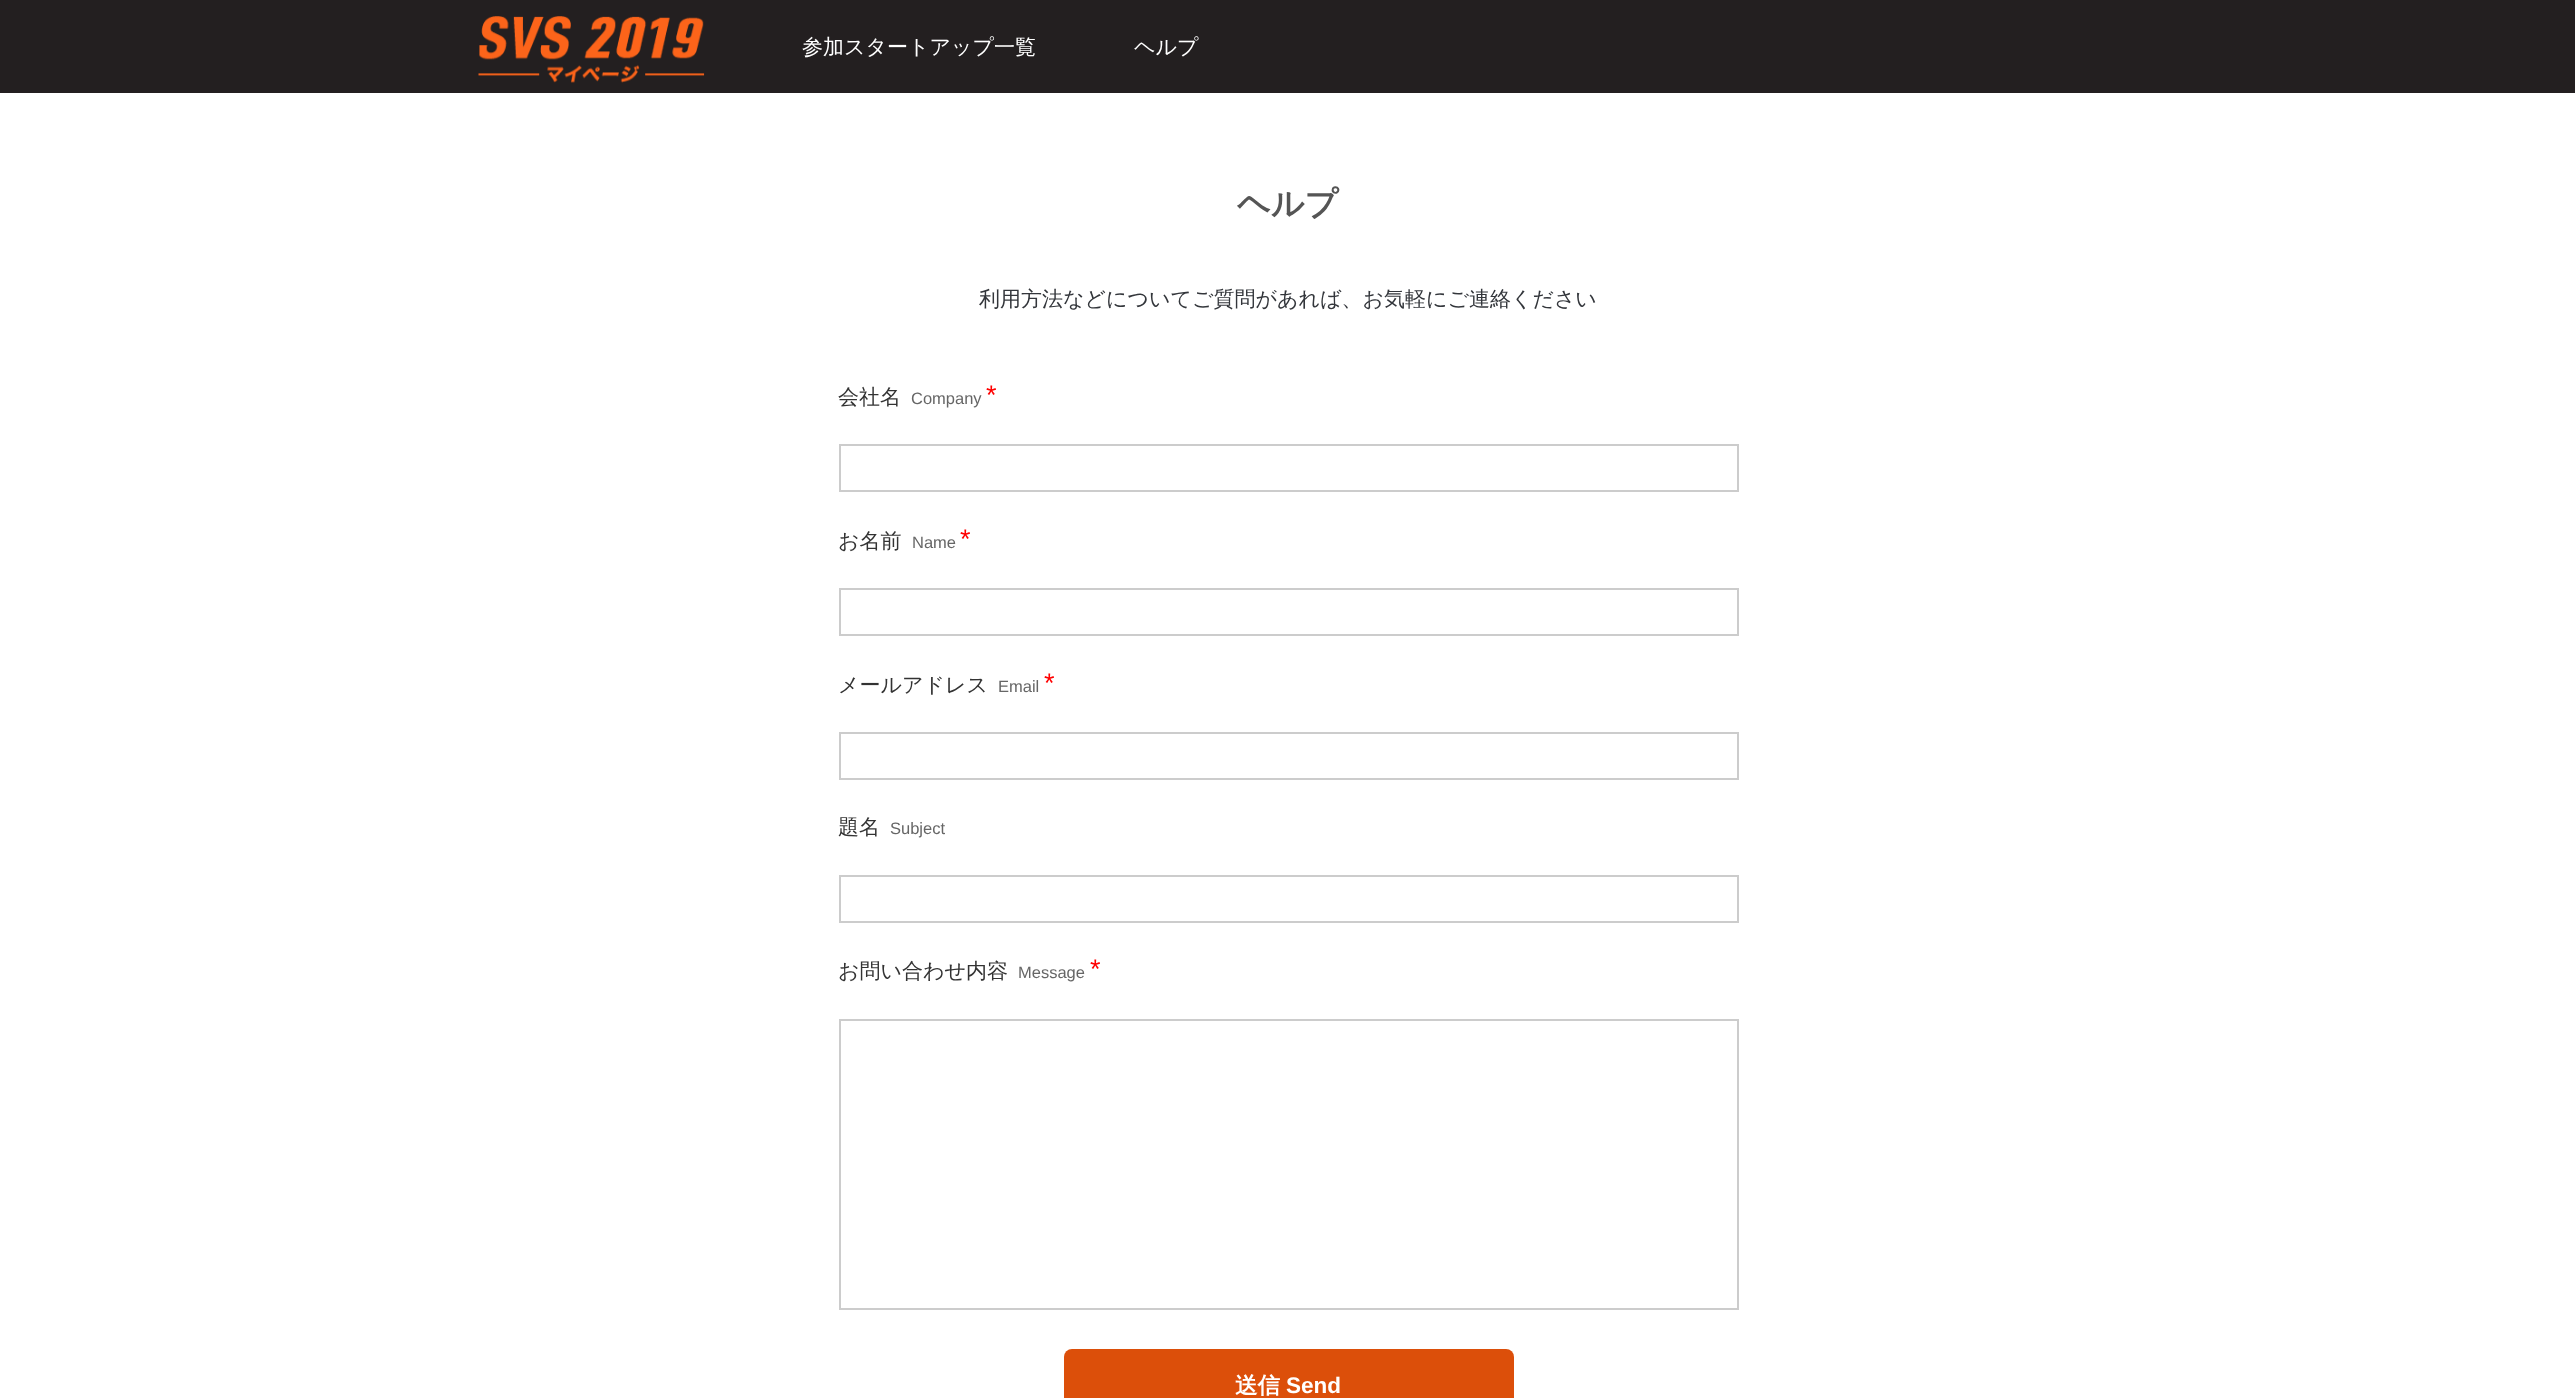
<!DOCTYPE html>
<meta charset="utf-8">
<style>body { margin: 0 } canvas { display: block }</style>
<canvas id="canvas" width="2575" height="1398"></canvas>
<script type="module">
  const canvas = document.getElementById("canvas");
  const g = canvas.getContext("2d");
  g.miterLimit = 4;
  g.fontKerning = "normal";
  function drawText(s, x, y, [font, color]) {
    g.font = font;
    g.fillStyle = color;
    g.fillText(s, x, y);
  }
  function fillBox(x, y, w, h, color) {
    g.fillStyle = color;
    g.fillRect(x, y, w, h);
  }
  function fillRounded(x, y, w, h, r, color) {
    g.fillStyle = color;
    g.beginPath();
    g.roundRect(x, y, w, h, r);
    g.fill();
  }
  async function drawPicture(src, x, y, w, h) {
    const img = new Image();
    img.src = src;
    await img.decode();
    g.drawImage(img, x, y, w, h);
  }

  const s1 = ["500 21px WenQuanYi Zen Hei", "#FFFFFF"];
  const s2 = ["bold 33px WenQuanYi Zen Hei", "#555555"];
  const s3 = ["500 21px WenQuanYi Zen Hei", "#33363B"];
  const s4 = ["500 21px WenQuanYi Zen Hei", "#333333"];
  const s5 = ["16.5px Liberation Sans", "#666666"];
  const s6 = ["27px Liberation Sans", "#FF0000"];
  const s7 = ["bold 22.5px WenQuanYi Zen Hei", "#FFFFFF"];
  const s8 = ["bold 22.5px Liberation Sans", "#FFFFFF"];

  fillBox(0, 0, 2575, 1398, "#FFFFFF");
  fillBox(0, 0, 2575, 93, "#231F20");
  await drawPicture("pic1.png", 478, 16, 227, 67);
  drawText("参加スタートアップ一覧", 802, 54, s1);
  drawText("ヘルプ", 1134, 54, s1);
  drawText("ヘルプ", 1237, 215, s2);
  drawText("利用方法などについてご質問があれば、お気軽にご連絡ください", 979, 306, s3);
  drawText("会社名", 838, 404, s4);
  drawText("Company", 911, 404, s5);
  drawText("*", 986, 404, s6);
  g.strokeStyle = "#CCCCCC";
  g.lineWidth = 2;
  g.strokeRect(840, 445, 898, 46);
  drawText("お名前", 838, 548, s4);
  drawText("Name", 912, 548, s5);
  drawText("*", 960, 548, s6);
  g.strokeRect(840, 589, 898, 46);
  drawText("メールアドレス", 838, 692, s4);
  drawText("Email", 998, 692, s5);
  drawText("*", 1044, 692, s6);
  g.strokeRect(840, 733, 898, 46);
  drawText("題名", 838, 834, s4);
  drawText("Subject", 890, 834, s5);
  g.strokeRect(840, 876, 898, 46);
  drawText("お問い合わせ内容", 838, 978, s4);
  drawText("Message", 1018, 978, s5);
  drawText("*", 1090, 978, s6);
  g.strokeRect(840, 1020, 898, 289);
  fillRounded(1064, 1349, 450, 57, 8, "#DC4F0A");
  drawText("送信", 1235, 1393, s7);
  drawText("Send", 1286, 1393, s8);
</script>
